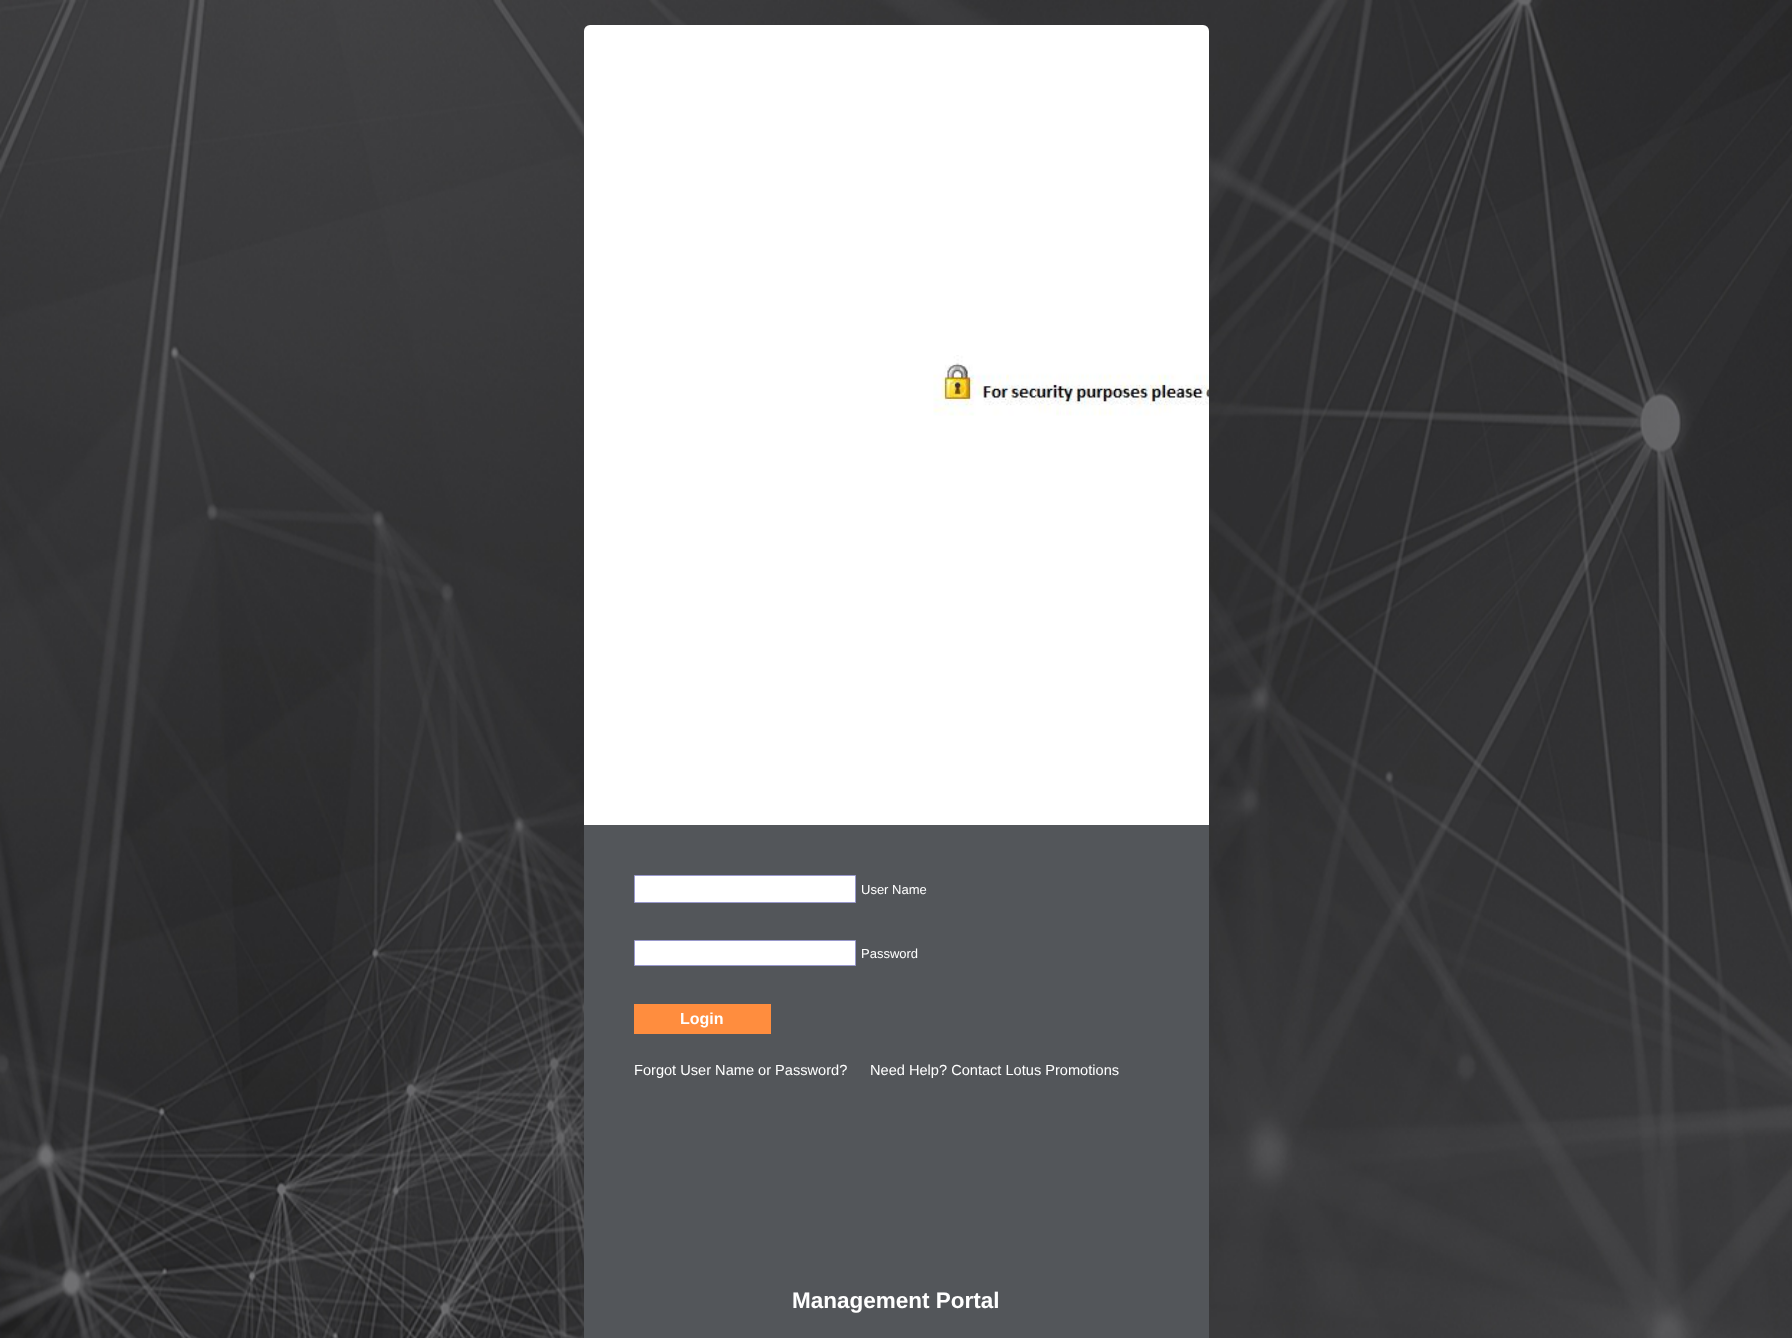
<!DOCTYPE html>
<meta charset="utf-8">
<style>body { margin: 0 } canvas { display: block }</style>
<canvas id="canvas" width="1792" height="1338"></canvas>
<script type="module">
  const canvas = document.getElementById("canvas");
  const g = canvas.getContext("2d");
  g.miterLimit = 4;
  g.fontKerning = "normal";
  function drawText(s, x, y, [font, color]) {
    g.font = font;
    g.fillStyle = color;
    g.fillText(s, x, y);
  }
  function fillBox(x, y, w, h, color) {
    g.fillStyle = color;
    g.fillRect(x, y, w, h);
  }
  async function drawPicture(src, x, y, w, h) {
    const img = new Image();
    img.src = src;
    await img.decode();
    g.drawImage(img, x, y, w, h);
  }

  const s1 = ["13px Liberation Sans", "#FFFFFF"];
  const s2 = ["bold 16px Liberation Sans", "#FFFFFF"];
  const s3 = ["14.6px Liberation Sans", "#FFFFFF"];
  const s4 = ["bold 22.5px Liberation Sans", "#FFFFFF"];

  fillBox(0, 0, 1792, 1338, "#FFFFFF");
  await drawPicture("pic1.png", 0, 0, 1792, 1338);
  g.beginPath();
  g.roundRect(584, 25, 625, 800, [6, 6, 0, 0]);
  g.fill();
  await drawPicture("pic2.png", 933, 355, 276, 61);
  fillBox(584, 825, 625, 513, "#53565A");
  g.fillStyle = "#FFFFFF";
  g.beginPath();
  g.rect(634.5, 875.5, 221, 27);
  g.fill();
  g.strokeStyle = "#9999CC";
  g.stroke();
  drawText("User Name", 861, 894, s1);
  g.beginPath();
  g.rect(634.5, 940.5, 221, 25);
  g.fill();
  g.stroke();
  drawText("Password", 861, 958, s1);
  fillBox(634, 1004, 137, 30, "#FF8D3E");
  drawText("Login", 680, 1024, s2);
  drawText("Forgot User Name or Password?", 634, 1075, s3);
  drawText("Need Help? Contact Lotus Promotions", 870, 1075, s3);
  drawText("Management Portal", 792, 1308, s4);
</script>
